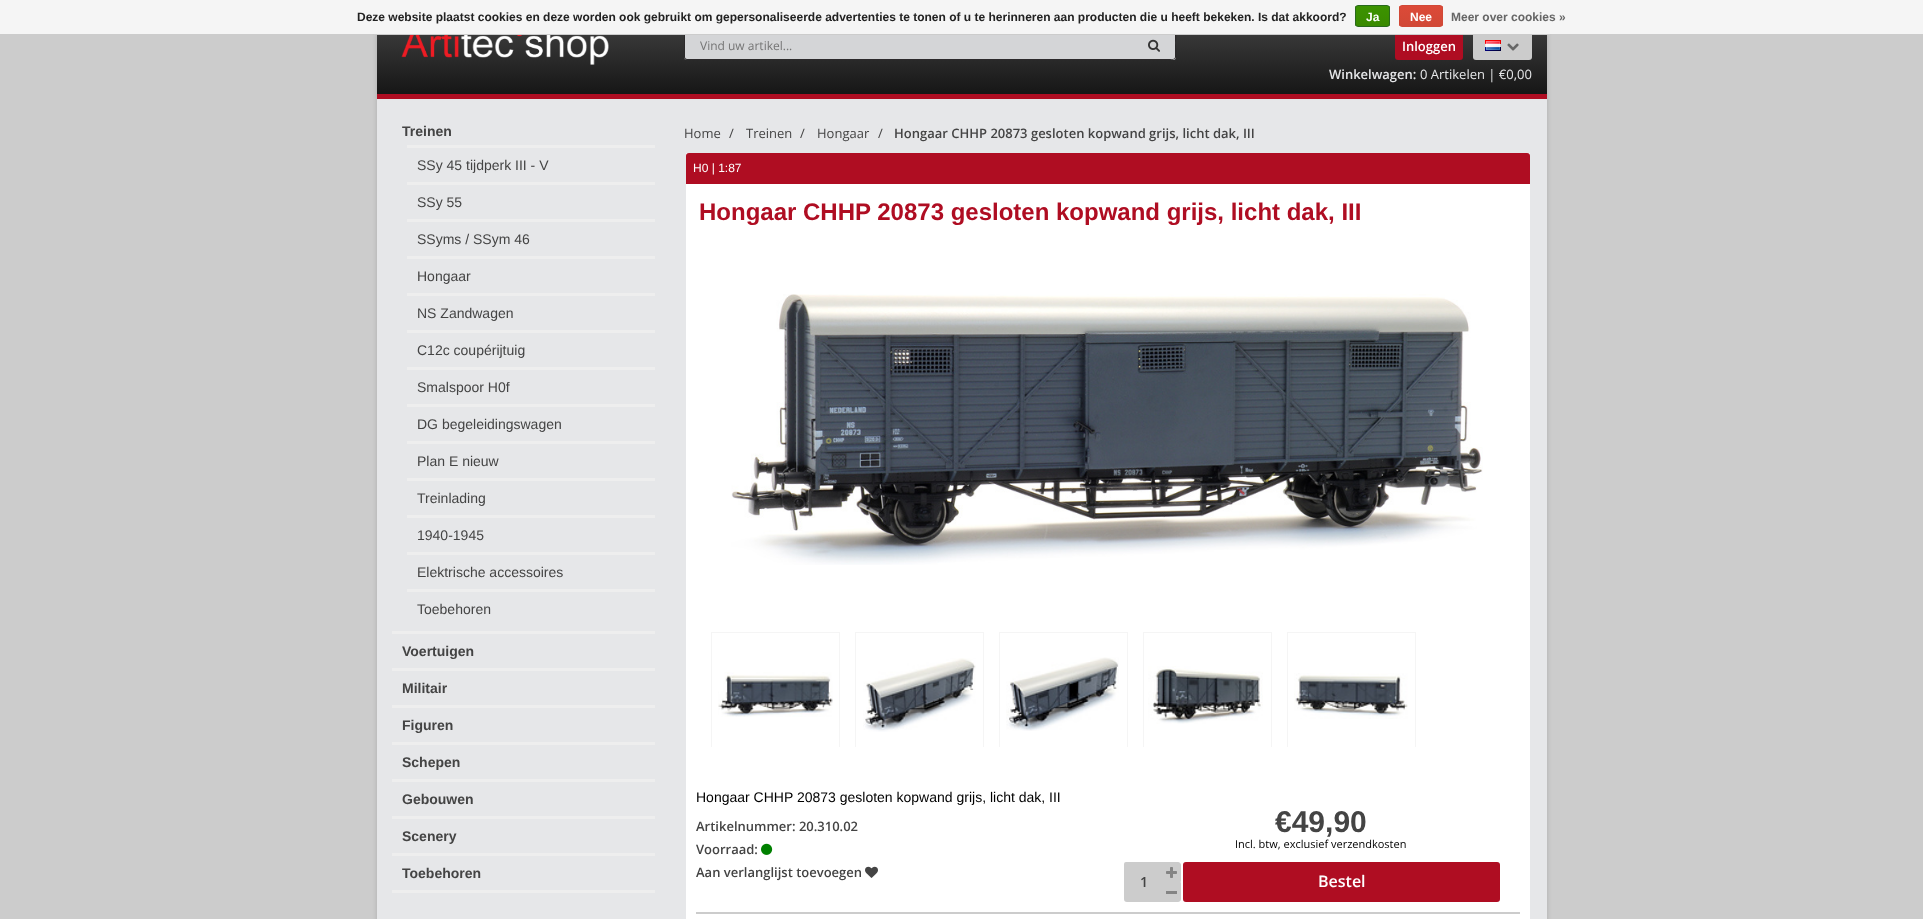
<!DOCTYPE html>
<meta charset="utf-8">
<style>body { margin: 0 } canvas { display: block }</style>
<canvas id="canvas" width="1923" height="919"></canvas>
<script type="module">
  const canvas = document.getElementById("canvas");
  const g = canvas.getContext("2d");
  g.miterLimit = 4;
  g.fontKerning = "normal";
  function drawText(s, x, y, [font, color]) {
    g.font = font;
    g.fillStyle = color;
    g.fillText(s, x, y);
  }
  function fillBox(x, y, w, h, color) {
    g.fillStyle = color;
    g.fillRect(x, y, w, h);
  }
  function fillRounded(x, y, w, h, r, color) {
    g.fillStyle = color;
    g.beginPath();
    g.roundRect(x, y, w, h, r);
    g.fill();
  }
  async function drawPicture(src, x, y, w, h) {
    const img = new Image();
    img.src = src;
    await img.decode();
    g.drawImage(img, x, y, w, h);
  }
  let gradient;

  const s1 = ["bold 12px Liberation Sans", "#222222"];
  const s2 = ["bold 12px Liberation Sans", "#FFFFFF"];
  const s3 = ["bold 12px Liberation Sans", "#666666"];
  const s4 = ["12px Open Sans", "#757575"];
  const s5 = ["600 13px Open Sans", "#FFFFFF"];
  const s6 = ["600 13px Open Sans", "#E6E7E9"];
  const s7 = ["13px Open Sans", "#E6E7E9"];
  const s8 = ["bold 14px Liberation Sans", "#444444"];
  const s9 = ["14px Liberation Sans", "#444444"];
  const s10 = ["13px Open Sans", "#444444"];
  const s11 = ["600 13px Open Sans", "#444444"];
  const s12 = ["12px Liberation Sans", "#FFFFFF"];
  const s13 = ["bold 24px Liberation Sans", "#AF0D22"];
  const s14 = ["14px Liberation Sans", "#000000"];
  const s15 = ["bold 30px Liberation Sans", "#444444"];
  const s16 = ["11px Open Sans", "#000000"];
  const s17 = ["600 14px Open Sans", "#444444"];
  const s18 = ["600 16px Open Sans", "#FFFFFF"];

  fillBox(0, 0, 1923, 919, "#CCCCCC");
  g.fillStyle = "rgba(0, 0, 0, 0.15)";
  g.filter = "blur(2.5px)";
  g.beginPath();
  g.rect(377, 1, 1170, 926);
  g.fill();
  g.filter = "none";
  gradient = g.createLinearGradient(962, 0, 962, 99);
  gradient.addColorStop(0, "#4C4C4C");
  gradient.addColorStop(1, "#131313");
  g.fillStyle = gradient;
  g.fillRect(377, 35, 1170, 59);
  g.fillStyle = "#D4D5D7";
  g.beginPath();
  g.roundRect(1133, 30, 43, 30, [0, 3, 3, 0]);
  g.fill();
  g.fillStyle = "#2C2A2B";
  g.beginPath();
  g.moveTo(1133, 30);
  g.lineTo(1166, 30);
  g.bezierCurveTo(1179, 30, 1176, 31, 1176, 45);
  g.bezierCurveTo(1176, 59, 1179, 60, 1166, 60);
  g.lineTo(1133, 60);
  g.closePath();
  g.moveTo(1133, 31);
  g.lineTo(1173, 31);
  g.bezierCurveTo(1174, 31, 1175, 32, 1175, 33);
  g.lineTo(1175, 57);
  g.bezierCurveTo(1175, 58, 1174, 59, 1173, 59);
  g.lineTo(1133, 59);
  g.closePath();
  g.fill("evenodd");
  g.fillStyle = "#D4D5D7";
  g.beginPath();
  g.roundRect(684, 30, 450, 30, [3, 0, 0, 3]);
  g.fill();
  g.fillStyle = "#2C2A2B";
  g.beginPath();
  g.moveTo(687, 30);
  g.lineTo(1134, 30);
  g.lineTo(1134, 60);
  g.lineTo(687, 60);
  g.bezierCurveTo(685, 60, 684, 59, 684, 57);
  g.lineTo(684, 33);
  g.bezierCurveTo(684, 31, 685, 30, 687, 30);
  g.closePath();
  g.moveTo(687, 31);
  g.lineTo(1134, 31);
  g.lineTo(1134, 59);
  g.lineTo(687, 59);
  g.bezierCurveTo(686, 59, 685, 58, 685, 57);
  g.lineTo(685, 33);
  g.bezierCurveTo(685, 32, 686, 31, 687, 31);
  g.closePath();
  g.fill("evenodd");
  fillRounded(1395, 30, 68, 30, 3, "#AF0D22");
  fillRounded(1473, 30, 59, 30, 3, "#CCCCCC");
  fillBox(0, 0, 1923, 34, "#F5F5F5");
  fillBox(374, 34, 1176, 1, "#CCCCCC");
  drawText("Deze website plaatst cookies en deze worden ook gebruikt om gepersonaliseerde advertenties te tonen of u te herinneren aan producten die u heeft bekeken. Is dat akkoord?", 357, 21, s1);
  g.save();
  g.beginPath();
  g.roundRect(1355, 5, 35, 22, 3);
  g.clip();
  gradient = g.createLinearGradient(1373, 6, 1373, 26);
  gradient.addColorStop(0, "#3C9300");
  gradient.addColorStop(1, "#398A00");
  g.fillStyle = gradient;
  g.fillRect(1355, 6, 35, 20);
  g.restore();
  g.beginPath();
  g.roundRect(1355.5, 5.5, 34, 21, 2.5);
  g.strokeStyle = "#29691D";
  g.stroke();
  drawText("Ja", 1366, 21, s2);
  g.save();
  g.beginPath();
  g.roundRect(1399, 5, 44, 22, 3);
  g.clip();
  gradient = g.createLinearGradient(1421, 6, 1421, 26);
  gradient.addColorStop(0, "#DC4A38");
  gradient.addColorStop(1, "#D14836");
  g.fillStyle = gradient;
  g.fillRect(1399, 6, 44, 20);
  g.restore();
  g.beginPath();
  g.roundRect(1399.5, 5.5, 43, 21, 2.5);
  g.strokeStyle = "#D14836";
  g.stroke();
  drawText("Nee", 1410, 21, s2);
  drawText("Meer over cookies »", 1451, 21, s3);
  fillBox(377, 99, 1170, 820, "#E6E7E9");
  fillBox(377, 94, 1170, 5, "#AF0D22");
  await drawPicture("pic1.png", 401, 35, 208, 30);
  drawText("Vind uw artikel...", 700, 50, s4);
  await drawPicture("pic2.png", 1148, 39, 12, 13);
  drawText("Inloggen", 1402, 51, s5);
  await drawPicture("pic3.png", 1485, 40, 16, 11);
  await drawPicture("pic4.png", 1507, 43, 12, 8);
  drawText("Winkelwagen:", 1329, 79, s6);
  drawText("0 Artikelen | €0,00", 1420, 79, s7);
  fillBox(392, 631, 263, 3, "#EEEEEE");
  drawText("Treinen", 402, 136, s8);
  fillBox(407, 145, 248, 3, "#EEEEEE");
  drawText("SSy 45 tijdperk III - V", 417, 170, s9);
  fillBox(407, 182, 248, 3, "#EEEEEE");
  drawText("SSy 55", 417, 207, s9);
  fillBox(407, 219, 248, 3, "#EEEEEE");
  drawText("SSyms / SSym 46", 417, 244, s9);
  fillBox(407, 256, 248, 3, "#EEEEEE");
  drawText("Hongaar", 417, 281, s9);
  fillBox(407, 293, 248, 3, "#EEEEEE");
  drawText("NS Zandwagen", 417, 318, s9);
  fillBox(407, 330, 248, 3, "#EEEEEE");
  drawText("C12c coupérijtuig", 417, 355, s9);
  fillBox(407, 367, 248, 3, "#EEEEEE");
  drawText("Smalspoor H0f", 417, 392, s9);
  fillBox(407, 404, 248, 3, "#EEEEEE");
  drawText("DG begeleidingswagen", 417, 429, s9);
  fillBox(407, 441, 248, 3, "#EEEEEE");
  drawText("Plan E nieuw", 417, 466, s9);
  fillBox(407, 478, 248, 3, "#EEEEEE");
  drawText("Treinlading", 417, 503, s9);
  fillBox(407, 515, 248, 3, "#EEEEEE");
  drawText("1940-1945", 417, 540, s9);
  fillBox(407, 552, 248, 3, "#EEEEEE");
  drawText("Elektrische accessoires", 417, 577, s9);
  fillBox(407, 589, 248, 3, "#EEEEEE");
  drawText("Toebehoren", 417, 614, s9);
  fillBox(392, 668, 263, 3, "#EEEEEE");
  drawText("Voertuigen", 402, 656, s8);
  fillBox(392, 705, 263, 3, "#EEEEEE");
  drawText("Militair", 402, 693, s8);
  fillBox(392, 742, 263, 3, "#EEEEEE");
  drawText("Figuren", 402, 730, s8);
  fillBox(392, 779, 263, 3, "#EEEEEE");
  drawText("Schepen", 402, 767, s8);
  fillBox(392, 816, 263, 3, "#EEEEEE");
  drawText("Gebouwen", 402, 804, s8);
  fillBox(392, 853, 263, 3, "#EEEEEE");
  drawText("Scenery", 402, 841, s8);
  fillBox(392, 890, 263, 3, "#EEEEEE");
  drawText("Toebehoren", 402, 878, s8);
  drawText("Home", 684, 138, s10);
  drawText("/", 729, 138, s10);
  drawText("Treinen", 746, 138, s10);
  drawText("/", 800, 138, s10);
  drawText("Hongaar", 817, 138, s10);
  drawText("/", 878, 138, s10);
  drawText("Hongaar CHHP 20873 gesloten kopwand grijs, licht dak, III", 894, 138, s11);
  fillBox(686, 153, 844, 766, "#FFFFFF");
  g.fillStyle = "#AF0D22";
  g.beginPath();
  g.roundRect(686, 153, 844, 31, [3, 3, 0, 0]);
  g.fill();
  drawText("H0 | 1:87", 693, 172, s12);
  drawText("Hongaar CHHP 20873 gesloten kopwand grijs, licht dak, III", 699, 220, s13);
  await drawPicture("pic5.png", 731, 294, 752, 271);
  g.strokeStyle = "#F5F5F5";
  g.strokeRect(711.5, 632.5, 128, 122);
  await drawPicture("pic6.png", 718, 672, 115, 45);
  g.strokeRect(855.5, 632.5, 128, 122);
  await drawPicture("pic7.png", 863, 658, 113, 74);
  g.strokeRect(999.5, 632.5, 128, 122);
  await drawPicture("pic8.png", 1006, 657, 113, 74);
  g.strokeRect(1143.5, 632.5, 128, 122);
  await drawPicture("pic9.png", 1148, 666, 115, 58);
  g.strokeRect(1287.5, 632.5, 128, 122);
  await drawPicture("pic10.png", 1294, 673, 114, 46);
  fillBox(711, 747, 705, 8, "#FFFFFF");
  fillBox(696, 912, 824, 2, "#CCCCCC");
  drawText("Hongaar CHHP 20873 gesloten kopwand grijs, licht dak, III", 696, 802, s14);
  drawText("€49,90", 1275, 832, s15);
  drawText("Incl. btw, exclusief verzendkosten", 1235, 848, s16);
  drawText("Artikelnummer: 20.310.02", 696, 831, s11);
  drawText("Voorraad:", 696, 854, s11);
  await drawPicture("pic11.png", 761, 843, 12, 12);
  drawText("Aan verlanglijst toevoegen", 696, 877, s11);
  await drawPicture("pic12.png", 865, 866, 13, 12);
  g.fillStyle = "#CCCCCC";
  g.beginPath();
  g.roundRect(1125.5, 863.5, 37, 37, [0.5, 0, 0, 1.5]);
  g.fill();
  g.strokeStyle = "#CCCCCC";
  g.lineWidth = 3;
  g.stroke();
  drawText("1", 1140, 887, s17);
  g.fillStyle = "#CCCCCC";
  g.beginPath();
  g.roundRect(1163.5, 862.5, 17, 19, [0, 2.5, 0, 0]);
  g.fill();
  g.lineWidth = 1;
  g.stroke();
  await drawPicture("pic13.png", 1166, 867, 11, 11);
  g.beginPath();
  g.roundRect(1163.5, 882.5, 17, 19, [0, 0, 2.5, 0]);
  g.fill();
  g.stroke();
  fillBox(1166, 891, 11, 3, "#848484");
  fillRounded(1183, 862, 317, 40, 3, "#AF0D22");
  drawText("Bestel", 1318, 887, s18);
</script>
